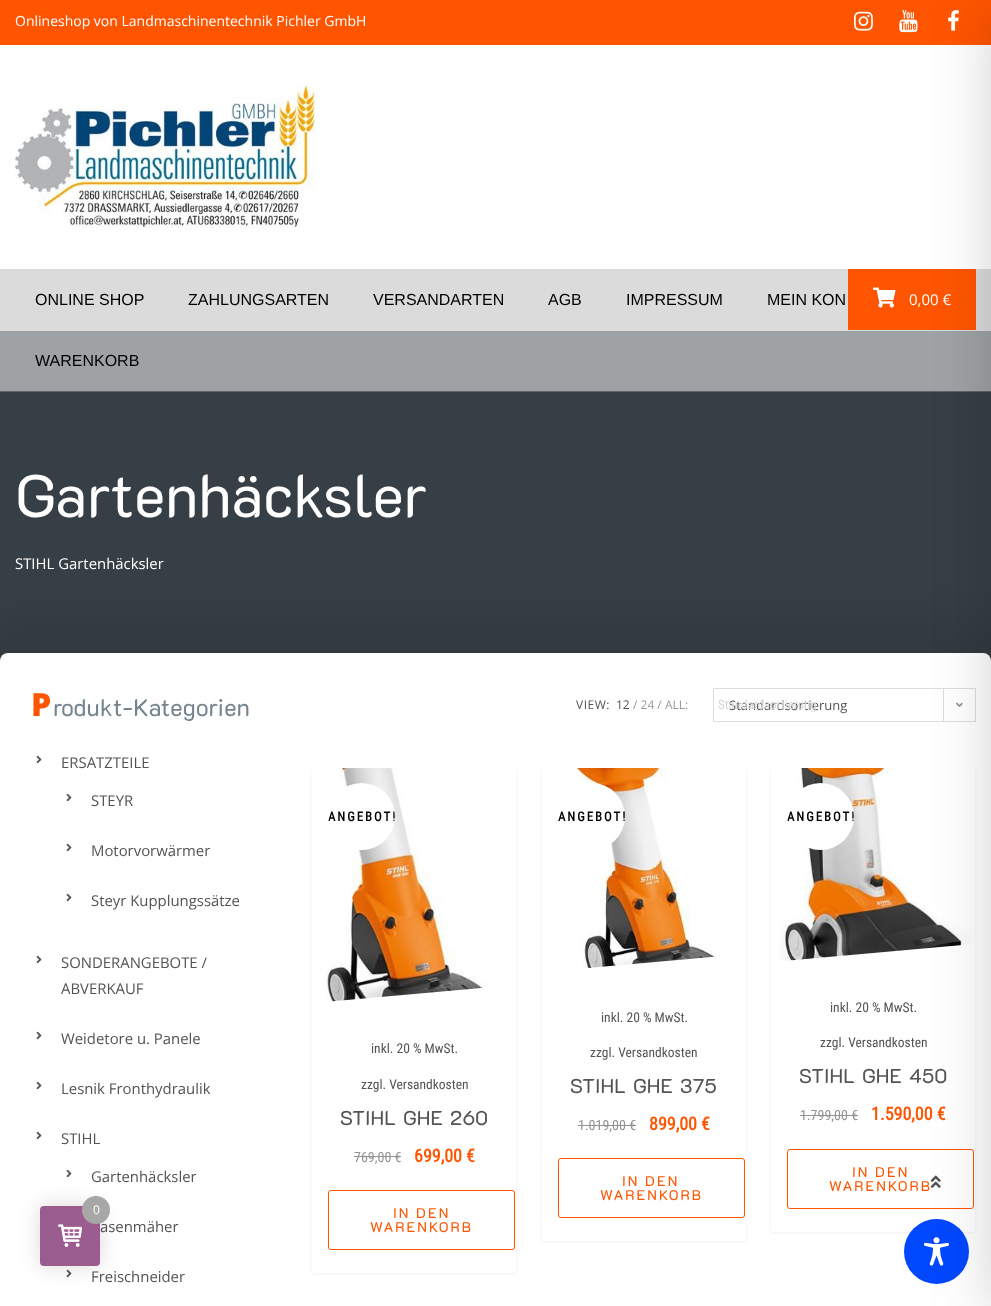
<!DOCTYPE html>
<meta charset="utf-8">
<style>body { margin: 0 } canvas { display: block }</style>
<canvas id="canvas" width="991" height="1306"></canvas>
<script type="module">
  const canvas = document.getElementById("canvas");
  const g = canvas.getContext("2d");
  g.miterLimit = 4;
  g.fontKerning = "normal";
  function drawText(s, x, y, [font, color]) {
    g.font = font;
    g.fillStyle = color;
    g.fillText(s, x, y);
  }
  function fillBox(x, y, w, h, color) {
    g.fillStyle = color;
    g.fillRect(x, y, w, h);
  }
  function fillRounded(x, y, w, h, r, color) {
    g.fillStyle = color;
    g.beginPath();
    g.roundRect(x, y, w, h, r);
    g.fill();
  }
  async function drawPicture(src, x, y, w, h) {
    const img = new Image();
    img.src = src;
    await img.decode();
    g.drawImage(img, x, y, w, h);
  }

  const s1 = ["14px Open Sans", "#FFFFFF"];
  const s2 = ["16px Liberation Sans", "#000000"];
  const s3 = ["15px Open Sans", "#FFFFFF"];
  const s4 = ["60px 'K2D'", "#FFFFFF"];
  const s5 = ["14.9px Open Sans", "#FFFFFF"];
  const s6 = ["900 32px Noto Sans", "#FF5500"];
  const s7 = ["24px 'K2D'", "#748590"];
  const s8 = ["14.9px Open Sans", "#545454"];
  const s9 = ["12px Open Sans", "#545454"];
  const s10 = ["12px Open Sans", "#999999"];
  const s11 = ["13px Open Sans", "#545454"];
  const s12 = ["13px Roboto Condensed", "#D7D7D7"];
  const s13 = ["bold 12.75px Roboto Condensed", "#000000"];
  const s14 = ["13.5px Roboto Condensed", "#545454"];
  const s15 = ["20px 'K2D'", "#545454"];
  const s16 = ["14px Roboto Condensed", "#939393"];
  const s17 = ["bold 18px Roboto Condensed", "#FF5500"];
  const s18 = ["14px 'K2D'", "#FF5500"];
  const s19 = ["12px Open Sans", "#FFFFFF"];

  fillBox(0, 0, 991, 1306, "#FF5500");
  await drawPicture("pic2.png", 899, 10, 19, 23);
  await drawPicture("pic3.png", 948, 10, 11, 21);
  fillBox(0, 45, 991, 224, "#FFFFFF");
  fillBox(0, 269, 991, 62, "#DBDBDB");
  fillBox(848, 269, 128, 61, "#FF5500");
  fillBox(0, 391, 991, 1, "#5F656B");
  fillBox(0, 392, 991, 269, "#373F46");
  fillBox(0, 331, 991, 60, "#9FA2A4");
  g.fillStyle = "rgba(0, 0, 0, 0.08)";
  g.filter = "blur(15px)";
  g.beginPath();
  g.roundRect(-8, 618, 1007, 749, 16);
  g.fill();
  g.filter = "none";
  fillRounded(0, 653, 991, 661, 8, "#FFFFFF");
  g.strokeStyle = "#DDDDDD";
  g.strokeRect(713.5, 688.5, 262, 33);
  await drawPicture("pic7.png", 956, 702, 7, 5);
  g.beginPath();
  g.moveTo(963, 703);
  g.lineTo(967, 707);
  g.lineTo(971, 703);
  g.strokeStyle = "#FFFFFF";
  g.lineWidth = 2;
  g.stroke();
  fillBox(943, 689, 1, 32, "#DDDDDD");
  g.fillStyle = "rgba(0, 0, 0, 0.06)";
  g.filter = "blur(1.5px)";
  g.beginPath();
  g.roundRect(771, 768, 204, 465, 3);
  g.fill();
  g.filter = "none";
  fillRounded(771, 767, 204, 465, 3, "#FFFFFF");
  await drawPicture("pic10.png", 780, 768, 194, 194);
  g.save();
  g.beginPath();
  g.rect(772, 768, 202, 217);
  g.clip();
  g.beginPath();
  g.moveTo(772, 962);
  g.lineTo(974, 944);
  g.lineTo(974, 976);
  g.bezierCurveTo(974, 980, 970, 984, 966, 985);
  g.lineTo(780, 1001);
  g.bezierCurveTo(775, 1001, 772, 998, 772, 994);
  g.closePath();
  g.fill();
  g.restore();
  g.beginPath();
  g.roundRect(787.5, 1149.5, 186, 59, 2.5);
  g.strokeStyle = "#FF5500";
  g.lineWidth = 1;
  g.stroke();
  await drawPicture("pic11.png", 930, 1175, 11, 13);
  g.fillStyle = "#0048FE";
  g.beginPath();
  g.arc(936.5, 1251.5, 32.5, 0, Math.PI * 2);
  g.fill();
  await drawPicture("pic13.png", 924, 1237, 25, 29);
  g.fillStyle = "rgba(0, 0, 0, 0.2)";
  g.filter = "blur(30px)";
  g.beginPath();
  g.rect(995, 10, 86, 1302);
  g.fill();
  g.filter = "none";
  drawText("Onlineshop von Landmaschinentechnik Pichler GmbH", 15, 26, s1);
  await drawPicture("pic1.png", 854, 11, 19, 20);
  await drawPicture("pic4.png", 15, 85, 300, 144);
  drawText("ONLINE SHOP", 35, 305, s2);
  drawText("ZAHLUNGSARTEN", 188, 305, s2);
  drawText("VERSANDARTEN", 373, 305, s2);
  drawText("AGB", 548, 305, s2);
  drawText("IMPRESSUM", 626, 305, s2);
  drawText("MEIN KON", 767, 305, s2);
  drawText("WARENKORB", 35, 366, s2);
  await drawPicture("pic5.png", 873, 287, 23, 21);
  drawText("0,00 €", 909, 305, s3);
  drawText("Gartenhäcksler", 15, 517, s4);
  drawText("STIHL Gartenhäcksler", 15, 569, s5);
  drawText("P", 31, 716, s6);
  drawText("rodukt-Kategorien", 53, 716, s7);
  await drawPicture("pic6.png", 36, 755, 6, 9);
  drawText("ERSATZTEILE", 61, 768, s8);
  await drawPicture("pic6.png", 66, 793, 6, 9);
  drawText("STEYR", 91, 806, s8);
  await drawPicture("pic6.png", 66, 843, 6, 9);
  drawText("Motorvorwärmer", 91, 856, s8);
  await drawPicture("pic6.png", 66, 893, 6, 9);
  drawText("Steyr Kupplungssätze", 91, 906, s8);
  await drawPicture("pic6.png", 36, 955, 6, 9);
  drawText("SONDERANGEBOTE /", 61, 968, s8);
  drawText("ABVERKAUF", 61, 994, s8);
  await drawPicture("pic6.png", 36, 1031, 6, 9);
  drawText("Weidetore u. Panele", 61, 1044, s8);
  await drawPicture("pic6.png", 36, 1081, 6, 9);
  drawText("Lesnik Fronthydraulik", 61, 1094, s8);
  await drawPicture("pic6.png", 36, 1131, 6, 9);
  drawText("STIHL", 61, 1144, s8);
  await drawPicture("pic6.png", 66, 1169, 6, 9);
  drawText("Gartenhäcksler", 91, 1182, s8);
  drawText("asenmäher", 100, 1232, s8);
  await drawPicture("pic6.png", 66, 1269, 6, 9);
  drawText("Freischneider", 91, 1282, s8);
  g.letterSpacing = "0.5px";
  drawText("VIEW:", 576, 709, s9);
  g.letterSpacing = "0px";
  drawText("12", 616, 709, s9);
  drawText("/ 24 / ALL:", 633, 709, s10);
  drawText("Standardsortierung", 729, 710, s11);
  drawText("Standardsortierung", 718, 709, s12);
  g.fillStyle = "rgba(0, 0, 0, 0.06)";
  g.filter = "blur(1.5px)";
  g.beginPath();
  g.roundRect(312, 768, 204, 506, 3);
  g.fill();
  g.filter = "none";
  fillRounded(312, 767, 204, 506, 3, "#FFFFFF");
  await drawPicture("pic8.png", 324, 768, 177, 235);
  g.beginPath();
  g.arc(361.5, 816.5, 33.5, 0, Math.PI * 2);
  g.fill();
  g.save();
  g.beginPath();
  g.roundRect(328, 783, 67, 67, 33.5);
  g.clip();
  g.letterSpacing = "2px";
  drawText("ANGEBOT!", 328, 821, s13);
  g.restore();
  g.save();
  g.beginPath();
  g.rect(313, 768, 202, 258);
  g.clip();
  g.beginPath();
  g.moveTo(313, 1003);
  g.lineTo(515, 985);
  g.lineTo(515, 1017);
  g.bezierCurveTo(515, 1022, 512, 1026, 507, 1026);
  g.lineTo(321, 1042);
  g.bezierCurveTo(317, 1043, 313, 1039, 313, 1035);
  g.closePath();
  g.fill();
  g.restore();
  drawText("inkl. 20 % MwSt.", 371, 1053, s14);
  drawText("zzgl. Versandkosten", 361, 1089, s14);
  g.wordSpacing = "2px";
  drawText("STIHL GHE 260", 340, 1125, s15);
  g.wordSpacing = "0px";
  drawText("769,00 €", 354, 1162, s16);
  fillBox(354, 1156, 47, 1, "#939393");
  drawText("699,00 €", 414, 1162, s17);
  g.beginPath();
  g.roundRect(328.5, 1190.5, 186, 59, 2.5);
  g.stroke();
  g.letterSpacing = "2px";
  drawText("IN DEN", 393, 1218, s18);
  drawText("WARENKORB", 370, 1232, s18);
  g.fillStyle = "rgba(0, 0, 0, 0.06)";
  g.filter = "blur(1.5px)";
  g.beginPath();
  g.roundRect(542, 768, 204, 474, 3);
  g.fill();
  g.filter = "none";
  fillRounded(542, 767, 204, 474, 3, "#FFFFFF");
  await drawPicture("pic9.png", 576, 768, 158, 202);
  g.beginPath();
  g.arc(591.5, 816.5, 33.5, 0, Math.PI * 2);
  g.fill();
  drawText("ANGEBOT!", 558, 821, s13);
  g.save();
  g.beginPath();
  g.rect(543, 768, 202, 227);
  g.clip();
  g.fillStyle = "#FFFFFF";
  g.beginPath();
  g.moveTo(543, 972);
  g.lineTo(745, 954);
  g.lineTo(745, 986);
  g.bezierCurveTo(745, 990, 741, 994, 737, 995);
  g.lineTo(551, 1011);
  g.bezierCurveTo(546, 1011, 543, 1008, 543, 1004);
  g.closePath();
  g.fill();
  g.restore();
  g.letterSpacing = "0px";
  drawText("inkl. 20 % MwSt.", 601, 1022, s14);
  drawText("zzgl. Versandkosten", 590, 1057, s14);
  g.wordSpacing = "2px";
  drawText("STIHL GHE 375", 570, 1093, s15);
  g.wordSpacing = "0px";
  drawText("1.019,00 €", 578, 1130, s16);
  fillBox(578, 1125, 58, 1, "#939393");
  drawText("899,00 €", 649, 1130, s17);
  g.beginPath();
  g.roundRect(558.5, 1158.5, 186, 59, 2.5);
  g.stroke();
  g.letterSpacing = "2px";
  drawText("IN DEN", 622, 1186, s18);
  drawText("WARENKORB", 600, 1200, s18);
  g.fillStyle = "#FFFFFF";
  g.beginPath();
  g.arc(820.5, 816.5, 33.5, 0, Math.PI * 2);
  g.fill();
  g.save();
  g.beginPath();
  g.roundRect(787, 783, 67, 67, 33.5);
  g.clip();
  drawText("ANGEBOT!", 787, 821, s13);
  g.restore();
  g.letterSpacing = "0px";
  drawText("inkl. 20 % MwSt.", 830, 1012, s14);
  drawText("zzgl. Versandkosten", 820, 1047, s14);
  g.wordSpacing = "2px";
  drawText("STIHL GHE 450", 799, 1083, s15);
  g.wordSpacing = "0px";
  drawText("1.799,00 €", 800, 1120, s16);
  fillBox(800, 1115, 58, 1, "#939393");
  drawText("1.590,00 €", 871, 1120, s17);
  g.letterSpacing = "2px";
  drawText("IN DEN", 852, 1177, s18);
  drawText("WARENKORB", 829, 1191, s18);
  g.fillStyle = "rgba(0, 0, 0, 0.15)";
  g.filter = "blur(10px)";
  g.beginPath();
  g.roundRect(40, 1206, 60, 60, 4);
  g.fill();
  g.filter = "none";
  fillRounded(40, 1206, 60, 60, 4, "#9B5C8F");
  g.fillStyle = "#A7A7A7";
  g.beginPath();
  g.arc(96, 1210, 14, 0, Math.PI * 2);
  g.fill();
  g.letterSpacing = "0px";
  drawText("0", 93, 1214, s19);
  await drawPicture("pic12.png", 58, 1224, 25, 23);
</script>
